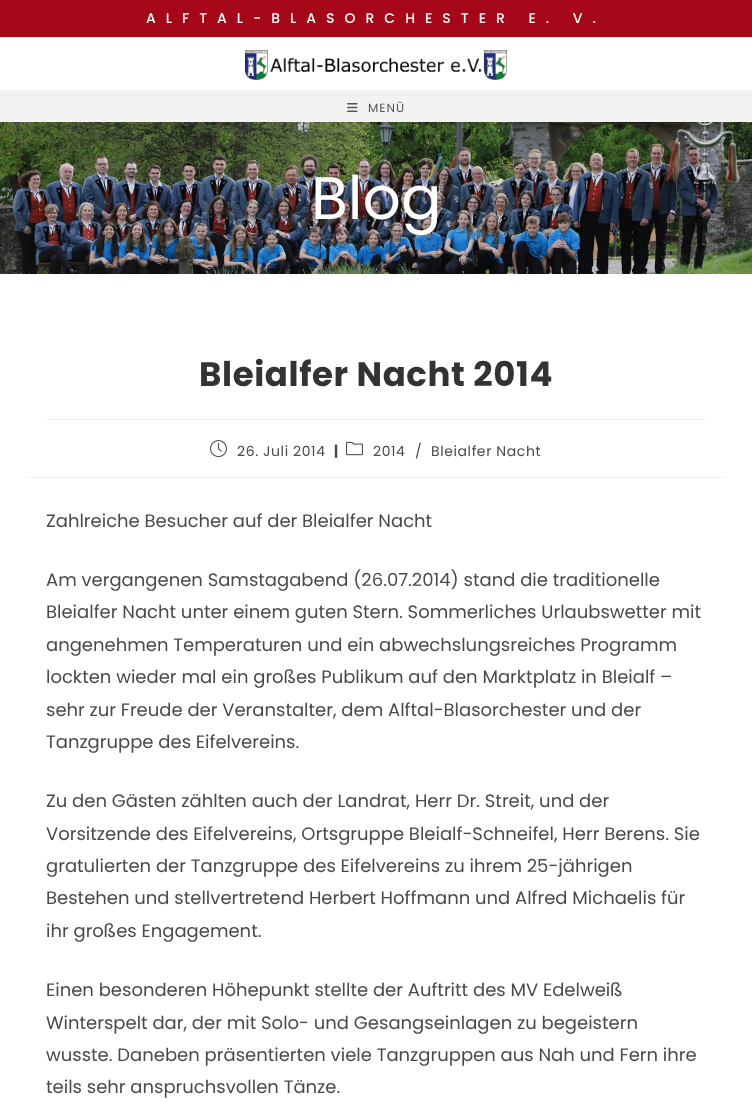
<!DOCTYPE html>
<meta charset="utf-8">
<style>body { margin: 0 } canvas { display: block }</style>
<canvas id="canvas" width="752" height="1102"></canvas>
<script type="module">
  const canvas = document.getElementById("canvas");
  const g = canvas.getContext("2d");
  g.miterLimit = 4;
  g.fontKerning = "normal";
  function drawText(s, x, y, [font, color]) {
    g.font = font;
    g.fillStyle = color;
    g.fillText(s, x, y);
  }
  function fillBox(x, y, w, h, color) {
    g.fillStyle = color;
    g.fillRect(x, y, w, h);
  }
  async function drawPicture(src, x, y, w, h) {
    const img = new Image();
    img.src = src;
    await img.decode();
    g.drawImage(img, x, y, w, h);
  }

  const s1 = ["500 14px Poppins", "#FFFFFF"];
  const s2 = ["12px Poppins", "#555555"];
  const s3 = ["60px Poppins", "#FFFFFF"];
  const s4 = ["bold 34px Poppins", "#333333"];
  const s5 = ["14px Poppins", "#4A4A4A"];
  const s6 = ["bold 14px Poppins", "#4A4A4A"];
  const s7 = ["18px Poppins", "#4A4A4A"];

  fillBox(0, 0, 752, 1102, "#FFFFFF");
  fillBox(0, 0, 752, 37, "#A60718");
  fillBox(0, 37, 752, 1, "#F1F1F1");
  g.letterSpacing = "10px";
  drawText("ALFTAL-BLASORCHESTER E. V.", 146, 23, s1);
  await drawPicture("pic1.png", 245, 50, 262, 30);
  fillBox(0, 90, 752, 32, "#F2F2F2");
  await drawPicture("pic2.png", 347, 103, 11, 9);
  g.letterSpacing = "1px";
  drawText("MENÜ", 368, 112, s2);
  await drawPicture("pic3.png", 0, 122, 752, 152);
  g.letterSpacing = "0px";
  drawText("Blog", 311, 219, s3);
  fillBox(46, 419, 660, 1, "#F1F1F1");
  g.letterSpacing = "0.6px";
  drawText("Bleialfer Nacht 2014", 199, 386, s4);
  fillBox(26, 477, 700, 1, "#F1F1F1");
  await drawPicture("pic4.png", 210, 440, 17, 18);
  drawText("26. Juli 2014", 237, 456, s5);
  drawText("|", 334, 456, s6);
  await drawPicture("pic5.png", 346, 441, 17, 15);
  drawText("2014", 373, 456, s5);
  drawText("/", 415, 456, s5);
  drawText("Bleialfer Nacht", 431, 456, s5);
  g.letterSpacing = "0px";
  drawText("Zahlreiche Besucher auf der Bleialfer Nacht", 46, 527, s7);
  drawText("Am vergangenen Samstagabend (26.07.2014) stand die traditionelle", 46, 586, s7);
  drawText("Bleialfer Nacht unter einem guten Stern. Sommerliches Urlaubswetter mit", 46, 618, s7);
  drawText("angenehmen Temperaturen und ein abwechslungsreiches Programm", 46, 651, s7);
  drawText("lockten wieder mal ein großes Publikum auf den Marktplatz in Bleialf –", 46, 683, s7);
  drawText("sehr zur Freude der Veranstalter, dem Alftal-Blasorchester und der", 46, 716, s7);
  drawText("Tanzgruppe des Eifelvereins.", 46, 748, s7);
  drawText("Zu den Gästen zählten auch der Landrat, Herr Dr. Streit, und der", 46, 807, s7);
  drawText("Vorsitzende des Eifelvereins, Ortsgruppe Bleialf-Schneifel, Herr Berens. Sie", 46, 840, s7);
  drawText("gratulierten der Tanzgruppe des Eifelvereins zu ihrem 25-jährigen", 46, 872, s7);
  drawText("Bestehen und stellvertretend Herbert Hoffmann und Alfred Michaelis für", 46, 904, s7);
  drawText("ihr großes Engagement.", 46, 937, s7);
  drawText("Einen besonderen Höhepunkt stellte der Auftritt des MV Edelweiß", 46, 996, s7);
  drawText("Winterspelt dar, der mit Solo- und Gesangseinlagen zu begeistern", 46, 1029, s7);
  drawText("wusste. Daneben präsentierten viele Tanzgruppen aus Nah und Fern ihre", 46, 1061, s7);
  drawText("teils sehr anspruchsvollen Tänze.", 46, 1093, s7);
</script>
